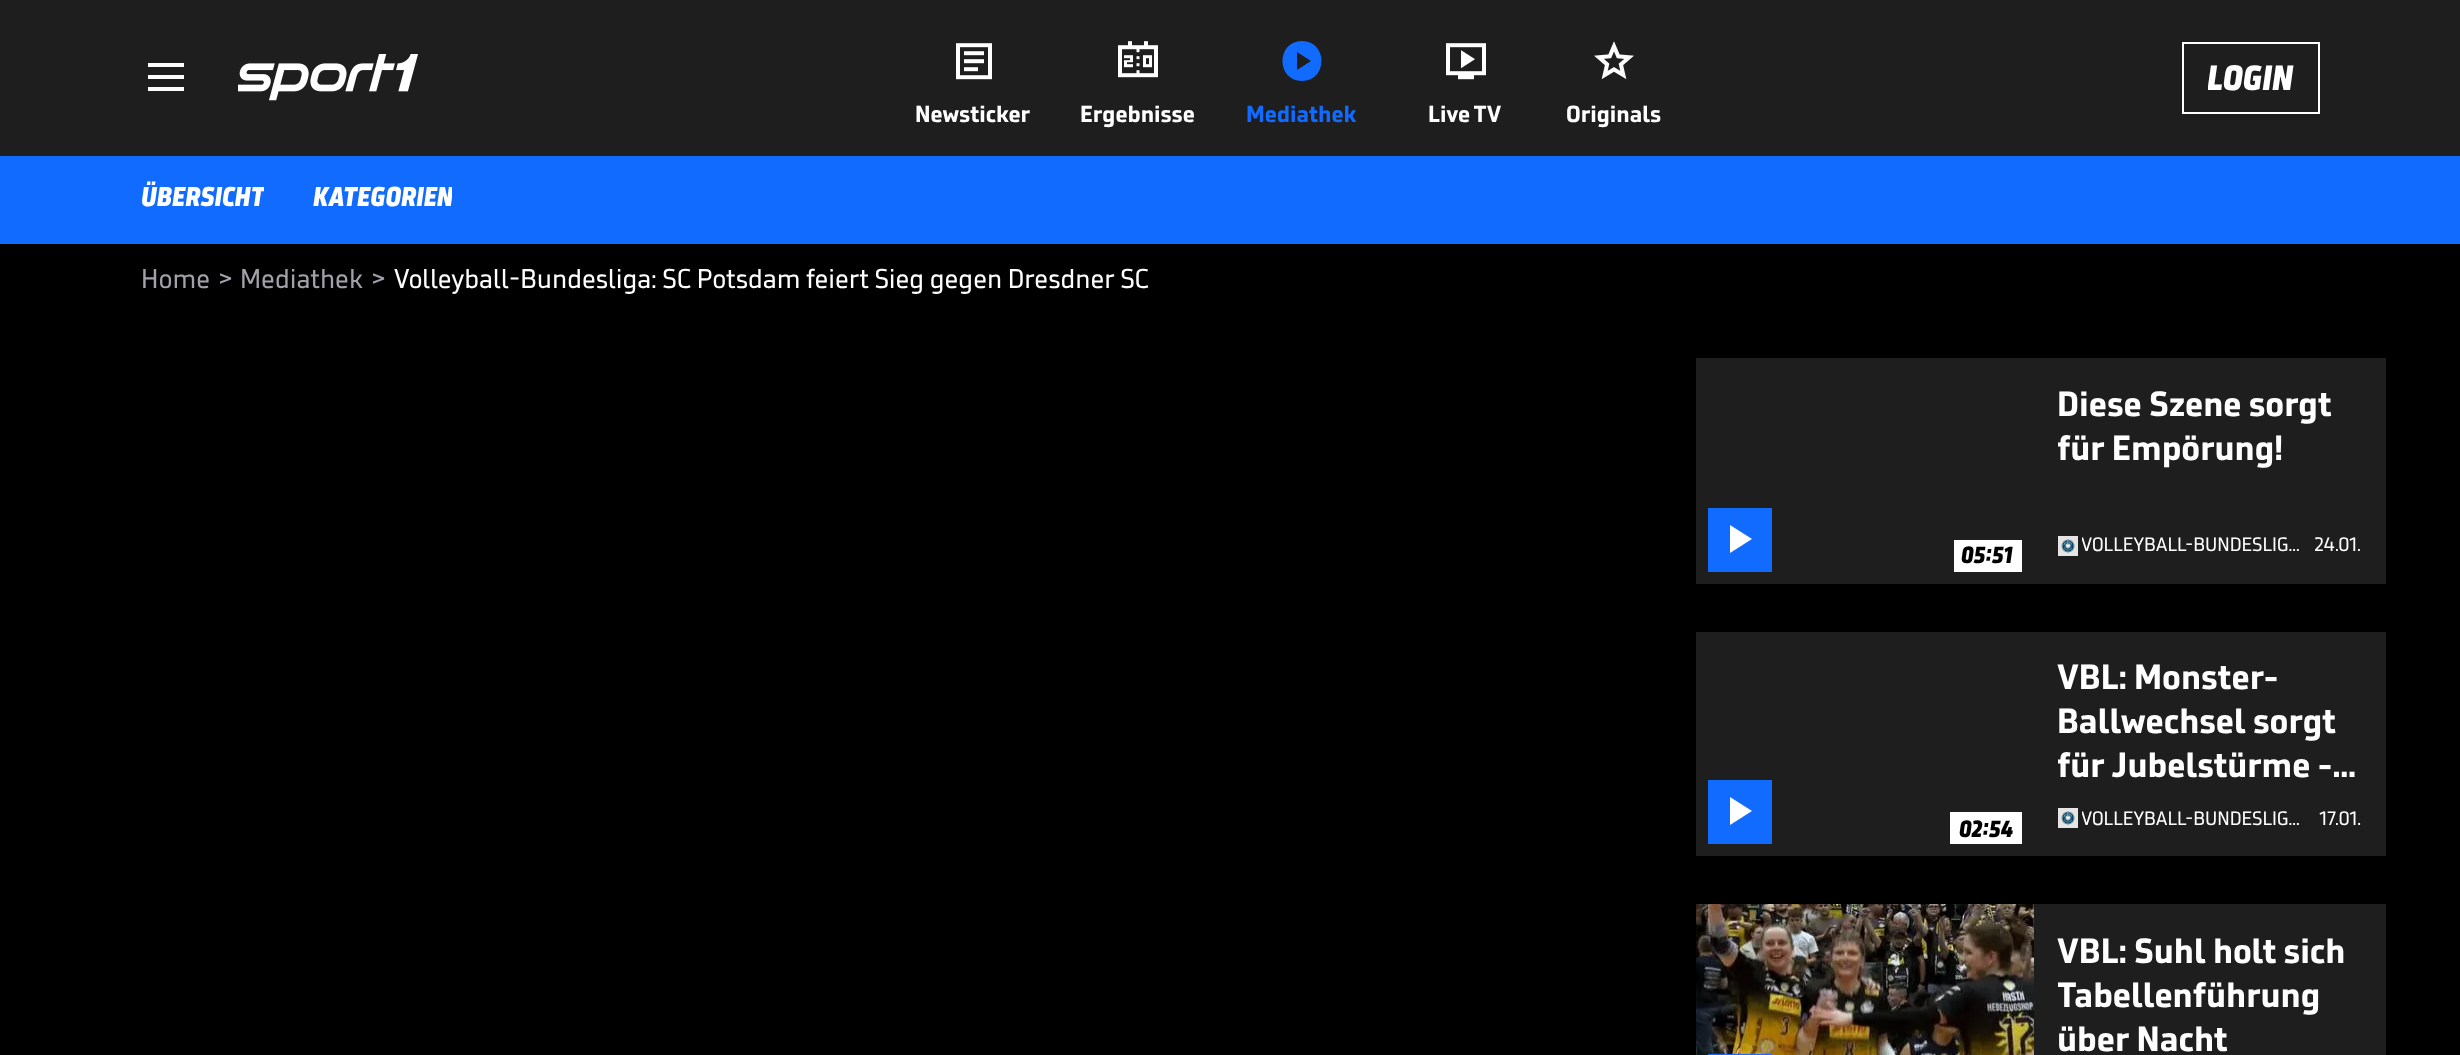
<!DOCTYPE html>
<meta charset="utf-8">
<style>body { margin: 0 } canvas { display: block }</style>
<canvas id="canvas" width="2460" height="1055"></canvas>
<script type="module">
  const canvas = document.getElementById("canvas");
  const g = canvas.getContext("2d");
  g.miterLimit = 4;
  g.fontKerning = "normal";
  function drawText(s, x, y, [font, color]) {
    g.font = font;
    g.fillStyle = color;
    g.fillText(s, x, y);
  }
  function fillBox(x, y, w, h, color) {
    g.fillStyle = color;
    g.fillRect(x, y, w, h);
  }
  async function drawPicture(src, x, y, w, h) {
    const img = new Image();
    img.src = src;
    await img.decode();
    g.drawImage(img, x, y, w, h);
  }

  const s1 = ["italic 900 36px 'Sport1'", "#FFFFFF"];
  const s2 = ["bold 24px 'Sport1'", "#FFFFFF"];
  const s3 = ["bold 24px 'Sport1'", "#106BFE"];
  const s4 = ["italic 900 28px 'Sport1'", "#FFFFFF"];
  const s5 = ["28px 'Sport1'", "#A1A1A9"];
  const s6 = ["28px 'Sport1'", "#FFFFFF"];
  const s7 = ["bold 36px 'Sport1'", "#FFFFFF"];
  const s8 = ["20px 'Sport1'", "#FFFFFF"];
  const s9 = ["italic 900 24px 'Sport1'", "#000000"];

  fillBox(0, 0, 2460, 1055, "#000000");
  fillBox(0, 0, 2460, 156, "#1E1E1E");
  g.fillStyle = "#FFFFFF";
  g.beginPath();
  g.moveTo(148, 67);
  g.lineTo(148, 63);
  g.lineTo(184, 63);
  g.lineTo(184, 67);
  g.closePath();
  g.moveTo(148, 91);
  g.lineTo(148, 87);
  g.lineTo(184, 87);
  g.lineTo(184, 91);
  g.closePath();
  g.moveTo(148, 79);
  g.lineTo(148, 75);
  g.lineTo(184, 75);
  g.lineTo(184, 79);
  g.closePath();
  g.fill();
  await drawPicture("pic1.png", 238, 54, 180, 47);
  g.strokeStyle = "#FFFFFF";
  g.lineWidth = 2;
  g.strokeRect(2183, 43, 136, 70);
  g.save();
  g.beginPath();
  g.rect(2208, 56, 86, 44);
  g.clip();
  drawText("LOGIN", 2207, 90, s1);
  g.restore();
  await drawPicture("pic2.png", 956, 43, 36, 37);
  drawText("Newsticker", 915, 122, s2);
  await drawPicture("pic3.png", 1118, 41, 40, 37);
  drawText("Ergebnisse", 1080, 122, s2);
  g.fillStyle = "#106BFE";
  g.beginPath();
  g.moveTo(1297, 70);
  g.lineTo(1311, 61);
  g.lineTo(1297, 52);
  g.closePath();
  g.moveTo(1302, 81);
  g.bezierCurveTo(1276, 81, 1276, 41, 1302, 41);
  g.bezierCurveTo(1328, 41, 1328, 81, 1302, 81);
  g.closePath();
  g.fill();
  drawText("Mediathek", 1246, 122, s3);
  await drawPicture("pic4.png", 1446, 43, 40, 37);
  drawText("Live TV", 1428, 122, s2);
  await drawPicture("pic5.png", 1594, 41, 40, 39);
  drawText("Originals", 1566, 122, s2);
  fillBox(0, 156, 2460, 88, "#106BFE");
  g.save();
  g.beginPath();
  g.rect(142, 180, 122, 36);
  g.clip();
  drawText("ÜBERSICHT", 141, 206, s4);
  g.restore();
  g.save();
  g.beginPath();
  g.rect(312, 180, 140, 36);
  g.clip();
  drawText("KATEGORIEN", 313, 206, s4);
  g.restore();
  drawText("Home", 141, 288, s5);
  drawText(">", 218, 288, s5);
  drawText("Mediathek", 240, 288, s5);
  drawText(">", 371, 288, s5);
  drawText("Volleyball-Bundesliga: SC Potsdam feiert Sieg gegen Dresdner SC", 394, 288, s6);
  fillBox(1696, 358, 690, 226, "#1E1E1E");
  drawText("Diese Szene sorgt", 2057, 416, s7);
  g.save();
  g.beginPath();
  g.rect(2058, 382, 304, 88);
  g.clip();
  drawText("für Empörung!", 2057, 460, s7);
  g.restore();
  fillBox(2058, 536, 20, 20, "#E5E5E5");
  await drawPicture("pic6.png", 2061, 539, 14, 14);
  g.save();
  g.beginPath();
  g.rect(2082, 534, 224, 24);
  g.clip();
  drawText("VOLLEYBALL-BUNDESLIG…", 2081, 551, s8);
  g.restore();
  drawText("24.01.", 2314, 551, s8);
  fillBox(1708, 508, 64, 64, "#106BFE");
  g.fillStyle = "#FFFFFF";
  g.beginPath();
  g.moveTo(1730, 553);
  g.lineTo(1730, 525);
  g.lineTo(1752, 539);
  g.closePath();
  g.fill();
  fillBox(1954, 540, 68, 32, "#FFFFFF");
  drawText("05:51", 1961, 563, s9);
  fillBox(1696, 632, 690, 224, "#1E1E1E");
  drawText("VBL: Monster-", 2057, 689, s7);
  drawText("Ballwechsel sorgt", 2057, 733, s7);
  g.save();
  g.beginPath();
  g.rect(2058, 656, 304, 132);
  g.clip();
  drawText("für Jubelstürme -…", 2057, 777, s7);
  g.restore();
  fillBox(2058, 808, 20, 20, "#E5E5E5");
  await drawPicture("pic6.png", 2061, 811, 14, 14);
  g.save();
  g.beginPath();
  g.rect(2082, 806, 228, 24);
  g.clip();
  drawText("VOLLEYBALL-BUNDESLIG…", 2081, 825, s8);
  g.restore();
  drawText("17.01.", 2319, 825, s8);
  fillBox(1708, 780, 64, 64, "#106BFE");
  g.fillStyle = "#FFFFFF";
  g.beginPath();
  g.moveTo(1730, 825);
  g.lineTo(1730, 797);
  g.lineTo(1752, 811);
  g.closePath();
  g.fill();
  fillBox(1950, 812, 72, 32, "#FFFFFF");
  drawText("02:54", 1959, 837, s9);
  fillBox(2034, 904, 352, 151, "#1E1E1E");
  await drawPicture("pic7.png", 1696, 904, 338, 151);
  fillBox(1708, 1054, 64, 1, "#106BFE");
  drawText("VBL: Suhl holt sich", 2057, 963, s7);
  g.save();
  g.beginPath();
  g.rect(2058, 928, 304, 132);
  g.clip();
  drawText("Tabellenführung", 2057, 1007, s7);
  g.restore();
  drawText("über Nacht", 2057, 1051, s7);
</script>
